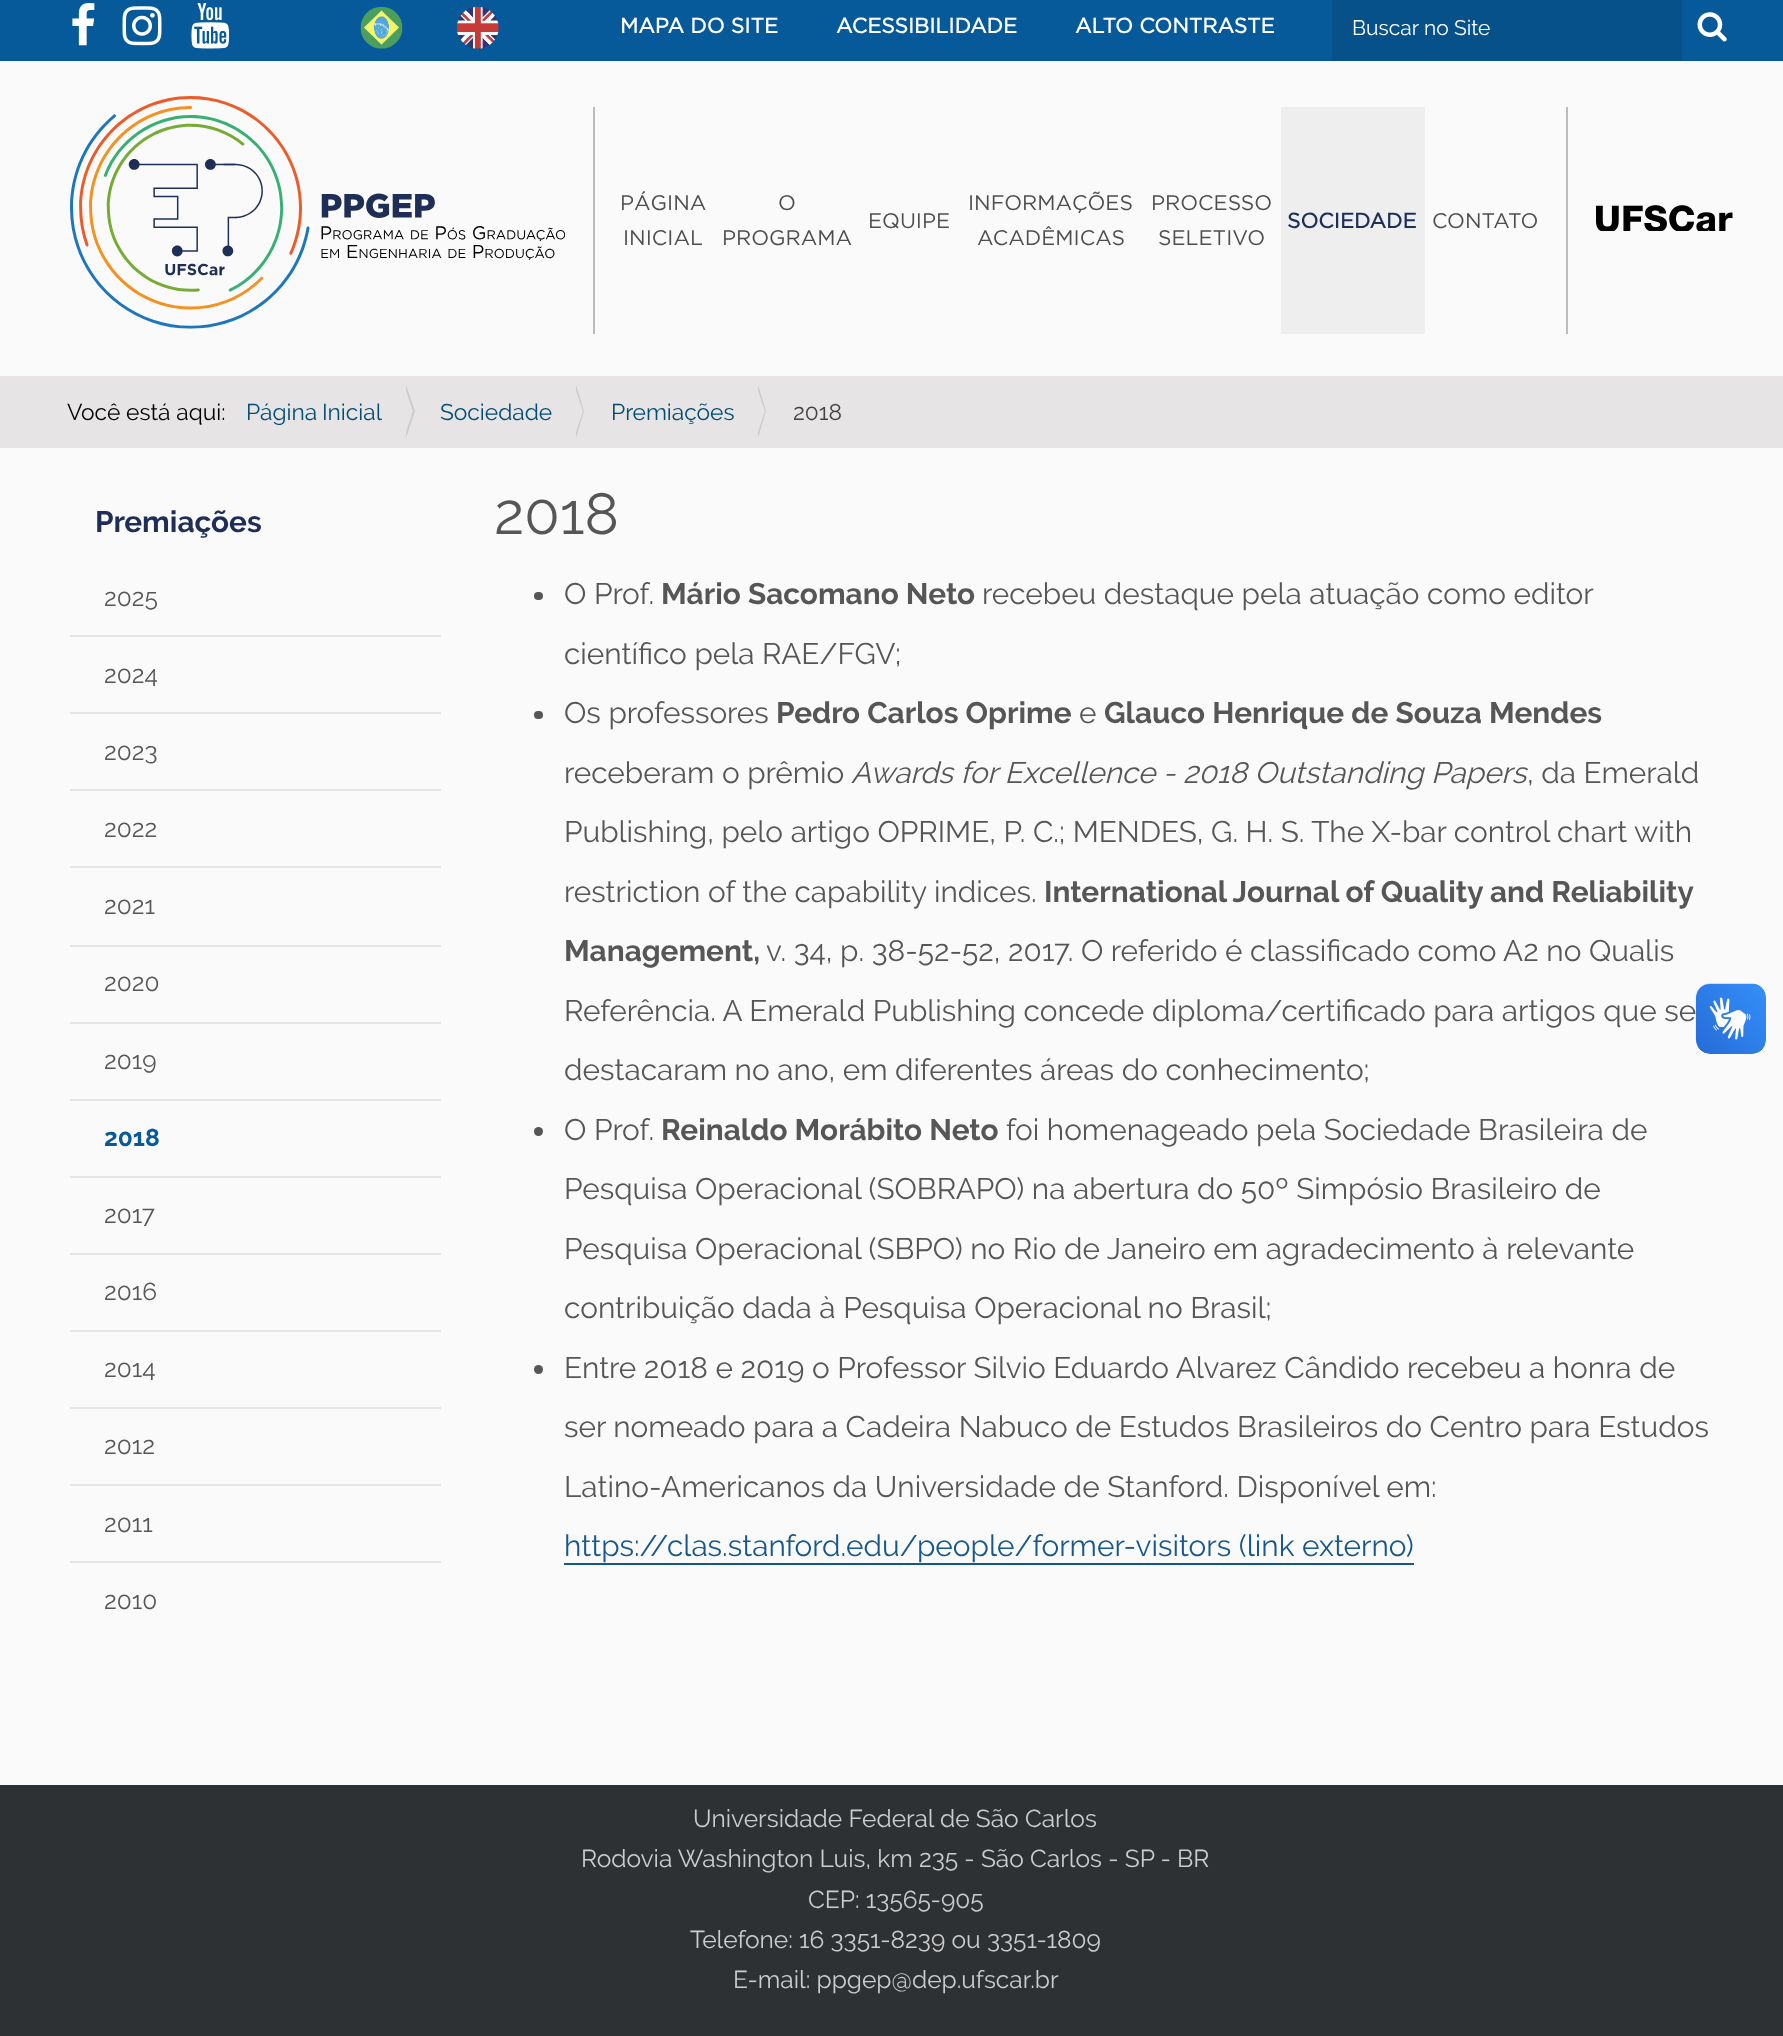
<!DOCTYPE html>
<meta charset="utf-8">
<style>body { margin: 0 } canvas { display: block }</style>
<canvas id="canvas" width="1783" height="2036"></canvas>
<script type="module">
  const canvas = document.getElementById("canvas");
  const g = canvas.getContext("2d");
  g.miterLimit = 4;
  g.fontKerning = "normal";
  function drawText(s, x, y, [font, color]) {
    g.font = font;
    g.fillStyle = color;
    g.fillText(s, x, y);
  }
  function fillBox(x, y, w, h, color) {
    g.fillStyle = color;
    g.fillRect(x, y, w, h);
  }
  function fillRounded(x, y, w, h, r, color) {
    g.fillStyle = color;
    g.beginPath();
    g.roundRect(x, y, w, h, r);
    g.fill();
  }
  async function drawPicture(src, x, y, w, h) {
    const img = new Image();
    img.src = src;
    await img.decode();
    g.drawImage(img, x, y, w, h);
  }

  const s1 = ["bold 21px Gotham", "#FFFFFF"];
  const s2 = ["21px Raleway", "#FFFFFF"];
  const s3 = ["21px Gotham", "#4F4E4E"];
  const s4 = ["bold 21px Gotham", "#1F2E57"];
  const s5 = ["22.75px Raleway", "#000000"];
  const s6 = ["22.75px Raleway", "#014C74"];
  const s7 = ["22.75px Raleway", "#424242"];
  const s8 = ["bold 29.75px Raleway", "#1F2E57"];
  const s9 = ["24.5px Raleway", "#565657"];
  const s10 = ["bold 24.5px Raleway", "#075A99"];
  const s11 = ["58px Raleway", "#565657"];
  const s12 = ["29.75px Raleway", "#565657"];
  const s13 = ["bold 29.75px Raleway", "#565657"];
  const s14 = ["italic 29.75px Raleway", "#565657"];
  const s15 = ["29.75px Raleway", "#16588D"];
  const s16 = ["24.5px Raleway", "#CCCCCC"];

  fillBox(0, 0, 1783, 2036, "#FAFAFA");
  fillBox(0, 0, 1783, 61, "#075A99");
  await drawPicture("pic1.png", 72, 3, 23, 43);
  await drawPicture("pic2.png", 122, 6, 40, 40);
  await drawPicture("pic3.png", 191, 3, 39, 46);
  await drawPicture("pic4.png", 360, 6, 43, 43);
  await drawPicture("pic5.png", 456, 6, 43, 43);
  drawText("MAPA DO SITE", 620, 33, s1);
  drawText("ACESSIBILIDADE", 836, 33, s1);
  drawText("ALTO CONTRASTE", 1075, 33, s1);
  fillBox(1332, 0, 350, 61, "#06518A");
  drawText("Buscar no Site", 1352, 35, s2);
  await drawPicture("pic6.png", 1697, 12, 30, 30);
  await drawPicture("pic7.png", 70, 96, 495, 233);
  fillBox(1566, 107, 2, 227, "#BBBBBB");
  fillBox(593, 107, 2, 227, "#BBBBBB");
  drawText("PÁGINA", 620, 210, s3);
  drawText("INICIAL", 623, 245, s3);
  drawText("O", 778, 210, s3);
  drawText("PROGRAMA", 722, 245, s3);
  drawText("EQUIPE", 868, 228, s3);
  drawText("INFORMAÇÕES", 968, 210, s3);
  drawText("ACADÊMICAS", 977, 245, s3);
  drawText("PROCESSO", 1151, 210, s3);
  drawText("SELETIVO", 1158, 245, s3);
  fillBox(1281, 107, 144, 227, "#EEEEEE");
  drawText("SOCIEDADE", 1287, 228, s4);
  drawText("CONTATO", 1432, 228, s3);
  await drawPicture("pic8.png", 1596, 205, 137, 26);
  fillBox(0, 376, 1783, 72, "#E6E4E4");
  drawText("Você está aqui:", 67, 420, s5);
  g.wordSpacing = "-1px";
  drawText("Página Inicial", 246, 420, s6);
  g.fillStyle = "#CCCCCC";
  g.beginPath();
  g.moveTo(406, 438);
  g.lineTo(406, 385);
  g.lineTo(415, 411);
  g.closePath();
  g.fill();
  g.fillStyle = "#E6E4E4";
  g.beginPath();
  g.moveTo(404, 438);
  g.lineTo(404, 385);
  g.lineTo(413, 411);
  g.closePath();
  g.fill();
  g.wordSpacing = "0px";
  drawText("Sociedade", 440, 420, s6);
  g.fillStyle = "#CCCCCC";
  g.beginPath();
  g.moveTo(576, 438);
  g.lineTo(576, 385);
  g.lineTo(584, 411);
  g.closePath();
  g.fill();
  g.fillStyle = "#E6E4E4";
  g.beginPath();
  g.moveTo(574, 438);
  g.lineTo(574, 385);
  g.lineTo(583, 411);
  g.closePath();
  g.fill();
  drawText("Premiações", 611, 420, s6);
  g.fillStyle = "#CCCCCC";
  g.beginPath();
  g.moveTo(758, 438);
  g.lineTo(758, 385);
  g.lineTo(766, 411);
  g.closePath();
  g.fill();
  g.fillStyle = "#E6E4E4";
  g.beginPath();
  g.moveTo(756, 438);
  g.lineTo(756, 385);
  g.lineTo(765, 411);
  g.closePath();
  g.fill();
  drawText("2018", 793, 420, s7);
  drawText("Premiações", 95, 532, s8);
  drawText("2025", 104, 606, s9);
  fillBox(70, 635, 371, 2, "#E5E5E5");
  drawText("2024", 104, 683, s9);
  fillBox(70, 712, 371, 2, "#E5E5E5");
  drawText("2023", 104, 760, s9);
  fillBox(70, 789, 371, 2, "#E5E5E5");
  drawText("2022", 104, 837, s9);
  fillBox(70, 866, 371, 2, "#E5E5E5");
  drawText("2021", 104, 914, s9);
  fillBox(70, 945, 371, 2, "#E5E5E5");
  drawText("2020", 104, 991, s9);
  fillBox(70, 1022, 371, 2, "#E5E5E5");
  drawText("2019", 104, 1069, s9);
  fillBox(70, 1099, 371, 2, "#E5E5E5");
  drawText("2018", 104, 1146, s10);
  fillBox(70, 1176, 371, 2, "#E5E5E5");
  drawText("2017", 104, 1223, s9);
  fillBox(70, 1253, 371, 2, "#E5E5E5");
  drawText("2016", 104, 1300, s9);
  fillBox(70, 1330, 371, 2, "#E5E5E5");
  drawText("2014", 104, 1377, s9);
  fillBox(70, 1407, 371, 2, "#E5E5E5");
  drawText("2012", 104, 1454, s9);
  fillBox(70, 1484, 371, 2, "#E5E5E5");
  drawText("2011", 104, 1532, s9);
  fillBox(70, 1561, 371, 2, "#E5E5E5");
  drawText("2010", 104, 1609, s9);
  drawText("2018", 494, 534, s11);
  fillRounded(534, 592, 9, 8, 4, "#565657");
  drawText("O Prof.", 564, 604, s12);
  drawText("Mário Sacomano Neto", 661, 604, s13);
  drawText("recebeu destaque pela atuação como editor", 982, 604, s12);
  drawText("científico pela RAE/FGV;", 564, 664, s12);
  fillRounded(534, 711, 9, 8, 4, "#565657");
  drawText("Os professores", 564, 723, s12);
  drawText("Pedro Carlos Oprime", 776, 723, s13);
  drawText("e", 1079, 723, s12);
  drawText("Glauco Henrique de Souza Mendes", 1104, 723, s13);
  drawText("receberam o prêmio", 564, 783, s12);
  drawText("Awards for Excellence - 2018 Outstanding Papers", 851, 783, s14);
  drawText(", da Emerald", 1527, 783, s12);
  drawText("Publishing, pelo artigo OPRIME, P. C.; MENDES, G. H. S. The X-bar control chart with", 564, 842, s12);
  drawText("restriction of the capability indices.", 564, 902, s12);
  drawText("International Journal of Quality and Reliability", 1044, 902, s13);
  drawText("Management,", 564, 961, s13);
  drawText("v. 34, p. 38-52-52, 2017. O referido é classificado como A2 no Qualis", 766, 961, s12);
  drawText("Referência. A Emerald Publishing concede diploma/certificado para artigos que se", 564, 1021, s12);
  drawText("destacaram no ano, em diferentes áreas do conhecimento;", 564, 1080, s12);
  g.beginPath();
  g.arc(538.5, 1131.5, 4.5, 0, Math.PI * 2);
  g.fill();
  drawText("O Prof.", 564, 1140, s12);
  drawText("Reinaldo Morábito Neto", 661, 1140, s13);
  drawText("foi homenageado pela Sociedade Brasileira de", 1006, 1140, s12);
  drawText("Pesquisa Operacional (SOBRAPO) na abertura do 50º Simpósio Brasileiro de", 564, 1199, s12);
  drawText("Pesquisa Operacional (SBPO) no Rio de Janeiro em agradecimento à relevante", 564, 1259, s12);
  drawText("contribuição dada à Pesquisa Operacional no Brasil;", 564, 1318, s12);
  g.beginPath();
  g.arc(538.5, 1369.5, 4.5, 0, Math.PI * 2);
  g.fill();
  drawText("Entre 2018 e 2019 o Professor Silvio Eduardo Alvarez Cândido recebeu a honra de", 564, 1378, s12);
  drawText("ser nomeado para a Cadeira Nabuco de Estudos Brasileiros do Centro para Estudos", 564, 1437, s12);
  drawText("Latino-Americanos da Universidade de Stanford. Disponível em:", 564, 1497, s12);
  drawText("https://clas.stanford.edu/people/former-visitors (link externo)", 564, 1556, s15);
  fillBox(564, 1563, 850, 2, "#16588D");
  await drawPicture("pic9.png", 1695, 983, 71, 71);
  await drawPicture("pic10.png", 1696, 984, 70, 70);
  fillBox(0, 1785, 1783, 251, "#2E3133");
  drawText("Universidade Federal de São Carlos", 693, 1827, s16);
  drawText("Rodovia Washington Luis, km 235 - São Carlos - SP - BR", 581, 1867, s16);
  drawText("CEP: 13565-905", 808, 1908, s16);
  drawText("Telefone: 16 3351-8239 ou 3351-1809", 690, 1948, s16);
  drawText("E-mail: ppgep@dep.ufscar.br", 733, 1988, s16);
</script>
